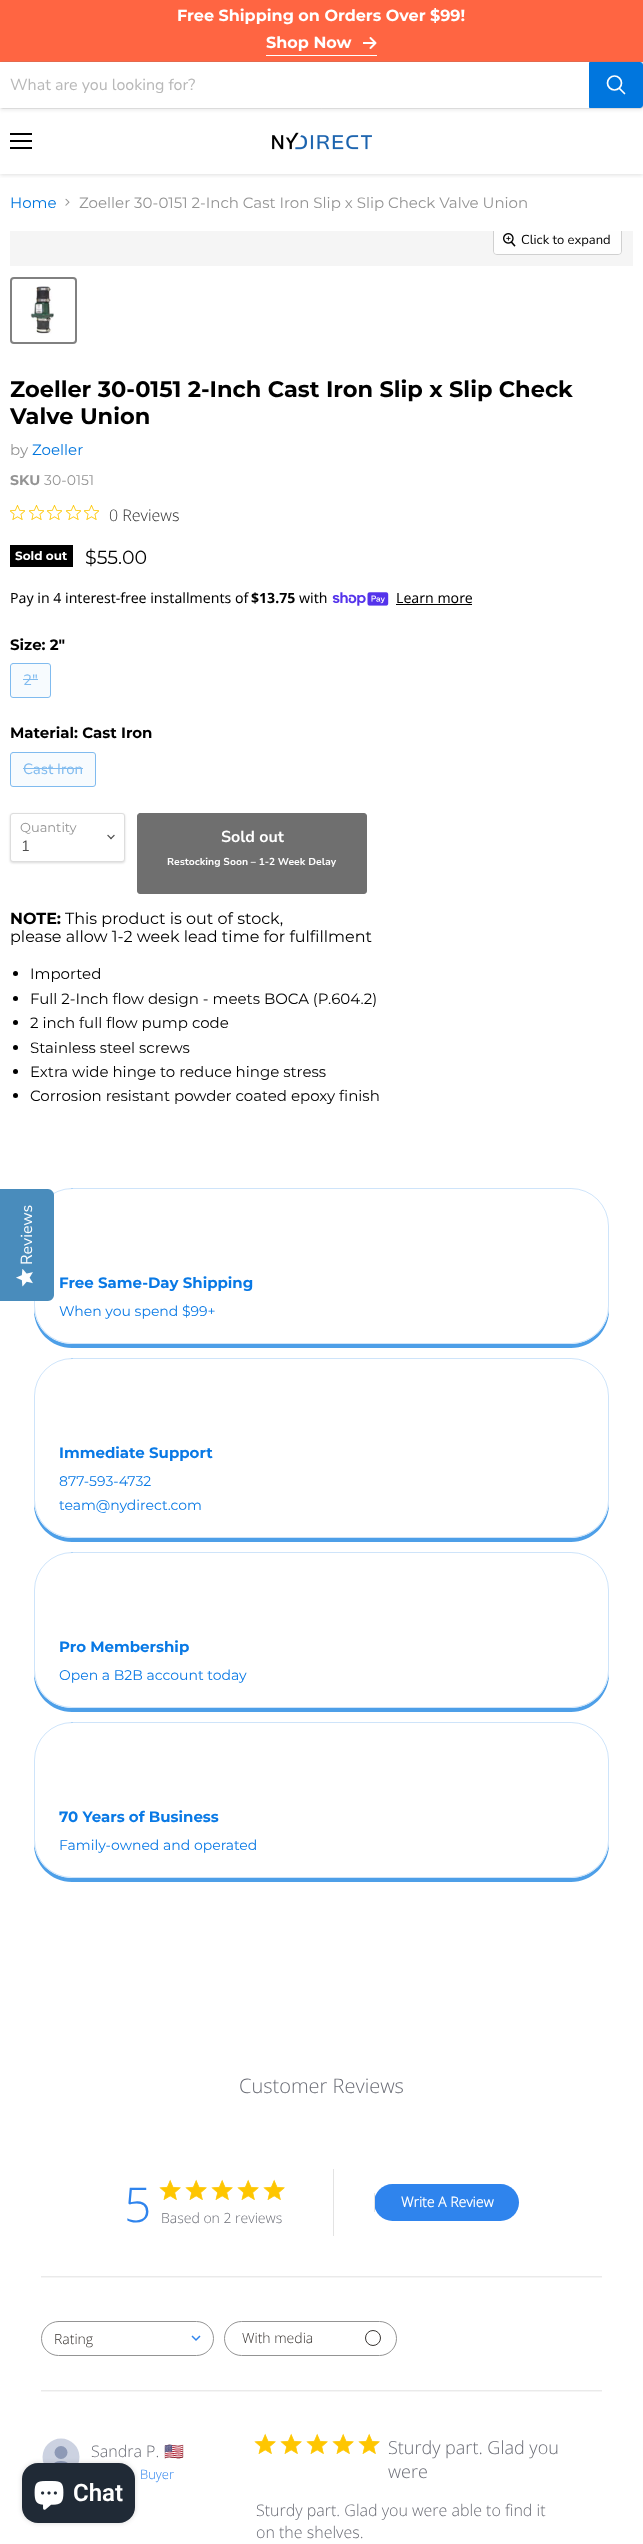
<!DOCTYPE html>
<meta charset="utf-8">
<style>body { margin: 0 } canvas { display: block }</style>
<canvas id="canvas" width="643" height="2544"></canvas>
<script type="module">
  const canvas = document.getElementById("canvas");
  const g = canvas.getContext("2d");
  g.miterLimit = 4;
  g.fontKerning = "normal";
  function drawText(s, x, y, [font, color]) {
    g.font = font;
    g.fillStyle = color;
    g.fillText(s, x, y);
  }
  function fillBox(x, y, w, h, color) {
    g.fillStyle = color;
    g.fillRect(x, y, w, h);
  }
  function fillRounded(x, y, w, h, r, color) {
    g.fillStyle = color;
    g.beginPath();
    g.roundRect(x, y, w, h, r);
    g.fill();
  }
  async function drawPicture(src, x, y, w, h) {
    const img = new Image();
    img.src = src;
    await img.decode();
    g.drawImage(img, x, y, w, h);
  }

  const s1 = ["bold 16px Montserrat", "#FFFFFF"];
  const s2 = ["16px Nunito Sans", "#B8B8B8"];
  const s3 = ["100 15px Montserrat", "#0076DE"];
  const s4 = ["100 15px Montserrat", "#949494"];
  const s5 = ["13px Nunito Sans", "#000000"];
  const s6 = ["bold 22.5px Montserrat", "#000000"];
  const s7 = ["bold 14px Montserrat", "#949494"];
  const s8 = ["100 14px Montserrat", "#949494"];
  const s9 = ["300 16px Open Sans", "#2C2C2C"];
  const s10 = ["bold 12px Montserrat", "#FFFFFF"];
  const s11 = ["100 19px Montserrat", "#000000"];
  const s12 = ["14.1px Noto Sans", "#000000"];
  const s13 = ["bold 14.1px Noto Sans", "#000000"];
  const s14 = ["bold 15px Montserrat", "#000000"];
  const s15 = ["15px Nunito Sans", "#80BBEF"];
  const s16 = ["100 13px Montserrat", "#949494"];
  const s17 = ["15px Nunito Sans", "#4D4D4D"];
  const s18 = ["bold 16px 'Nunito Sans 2'", "#FFFFFF"];
  const s19 = ["bold 10px Nunito Sans", "#FFFFFF"];
  const s20 = ["bold 16px Montserrat", "#000000"];
  const s21 = ["100 16px Montserrat", "#000000"];
  const s22 = ["100 15px Montserrat", "#000000"];
  const s23 = ["bold 15px Montserrat", "#0979E5"];
  const s24 = ["100 14px Montserrat", "#0979E5"];
  const s25 = ["300 20px Open Sans", "#6B6D76"];
  const s26 = ["300 48px Open Sans", "#2F84ED"];
  const s27 = ["300 14px Open Sans", "#6B6D76"];
  const s28 = ["bold 14px Open Sans", "#FFFFFF"];
  const s29 = ["300 14px Open Sans", "#373330"];
  const s30 = ["300 16px Open Sans", "#6B6D76"];
  const s31 = ["16px Noto Color Emoji", "#6B6D76"];
  const s32 = ["300 13px Open Sans", "#2F84ED"];
  const s33 = ["300 18px Open Sans", "#6B6D76"];
  const s34 = ["600 24px Roboto", "#FFFFFF"];

  fillBox(0, 0, 643, 2544, "#FFFFFF");
  g.save();
  g.beginPath();
  g.rect(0, 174, 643, 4);
  g.clip();
  g.fillStyle = "rgba(128, 128, 128, 0.25)";
  g.filter = "blur(2px)";
  g.beginPath();
  g.rect(0, 1, 643, 174);
  g.fill();
  g.filter = "none";
  g.restore();
  fillBox(0, 0, 643, 62, "#FF6542");
  drawText("Free Shipping on Orders Over $99!", 177, 21, s1);
  fillBox(266, 55, 111, 1, "#FFFFFF");
  drawText("Shop Now", 266, 48, s1);
  await drawPicture("pic1.png", 363, 37, 14, 12);
  g.fillStyle = "rgba(128, 128, 128, 0.11)";
  g.filter = "blur(1.5px)";
  g.beginPath();
  g.roundRect(-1, 63, 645, 48, 4);
  g.fill();
  g.filter = "none";
  g.beginPath();
  g.roundRect(-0.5, 61.5, 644, 47, 3.5);
  g.strokeStyle = "rgba(128, 128, 128, 0.2)";
  g.stroke();
  fillBox(0, 62, 589, 46, "#FFFFFF");
  drawText("What are you looking for?", 10, 90, s2);
  g.fillStyle = "#0076DE";
  g.beginPath();
  g.roundRect(589.5, 62.5, 53, 45, [0, 2.5, 2.5, 0]);
  g.fill();
  g.strokeStyle = "#0076DE";
  g.stroke();
  g.beginPath();
  g.moveTo(624.5, 93.5);
  g.lineTo(619.5, 88.5);
  g.strokeStyle = "#FFFFFF";
  g.lineWidth = 1.7;
  g.lineCap = "round";
  g.stroke();
  g.beginPath();
  g.arc(614.5, 83, 7, 0, Math.PI * 2);
  g.stroke();
  fillBox(10, 133, 22, 2, "#000000");
  fillBox(10, 140, 22, 2, "#000000");
  fillBox(10, 147, 22, 2, "#000000");
  await drawPicture("pic2.png", 272, 132, 100, 18);
  drawText("Home", 10, 208, s3);
  await drawPicture("pic3.png", 65, 198, 5, 8);
  drawText("Zoeller 30-0151 2-Inch Cast Iron Slip x Slip Check Valve Union", 79, 208, s4);
  fillBox(10, 231, 623, 35, "#F5F5F5");
  g.save();
  g.beginPath();
  g.rect(10, 231, 623, 35);
  g.clip();
  g.beginPath();
  g.roundRect(493.5, 226.5, 128, 28, 3.5);
  g.strokeStyle = "#D0D0D0";
  g.lineWidth = 1;
  g.stroke();
  g.restore();
  g.fillStyle = "rgba(255, 255, 255, 0.9)";
  g.beginPath();
  g.roundRect(494, 231, 127, 23, [0, 0, 3, 3]);
  g.fill();
  await drawPicture("pic4.png", 503, 233, 13, 14);
  drawText("Click to expand", 521, 244, s5);
  g.beginPath();
  g.roundRect(11, 278, 65, 65, 3);
  g.strokeStyle = "#818181";
  g.lineWidth = 2;
  g.stroke();
  await drawPicture("pic5.png", 30, 286, 24, 48);
  drawText("Zoeller 30-0151 2-Inch Cast Iron Slip x Slip Check", 10, 397, s6);
  drawText("Valve Union", 10, 424, s6);
  drawText("by", 10, 455, s4);
  drawText("Zoeller", 32, 455, s3);
  drawText("SKU", 10, 485, s7);
  drawText("30-0151", 44, 485, s8);
  await drawPicture("pic6.png", 10, 505, 15, 15);
  await drawPicture("pic6.png", 29, 505, 15, 15);
  await drawPicture("pic6.png", 47, 505, 15, 15);
  await drawPicture("pic6.png", 66, 505, 15, 15);
  await drawPicture("pic6.png", 84, 505, 15, 15);
  drawText("0 Reviews", 109, 521, s9);
  fillBox(10, 545, 63, 22, "#000000");
  drawText("Sold out", 15, 560, s10);
  drawText("$55.00", 85, 564, s11);
  drawText("Pay in 4 interest-free installments of", 10, 603, s12);
  drawText("$13.75", 251, 603, s13);
  drawText("with", 299, 603, s12);
  await drawPicture("pic7.png", 332, 592, 57, 14);
  drawText("Learn more", 396, 603, s12);
  fillBox(396, 604, 76, 1, "#000000");
  drawText("Size: 2\"", 10, 650, s14);
  g.fillStyle = "#F7FBFE";
  g.beginPath();
  g.roundRect(10.5, 663.5, 40, 34, 2.5);
  g.fill();
  g.strokeStyle = "#80BBEF";
  g.lineWidth = 1;
  g.stroke();
  drawText("2\"", 23, 685, s15);
  fillBox(23, 679, 15, 1, "#80BBEF");
  drawText("Material: Cast Iron", 10, 738, s14);
  g.fillStyle = "#F7FBFE";
  g.beginPath();
  g.roundRect(10.5, 752.5, 85, 34, 2.5);
  g.fill();
  g.stroke();
  drawText("Cast Iron", 23, 774, s15);
  fillBox(23, 768, 60, 1, "#80BBEF");
  g.fillStyle = "rgba(0, 0, 0, 0.15)";
  g.filter = "blur(1px)";
  g.beginPath();
  g.roundRect(10, 814, 115, 49, 3);
  g.fill();
  g.filter = "none";
  g.fillStyle = "#FFFFFF";
  g.beginPath();
  g.roundRect(10.5, 813.5, 114, 48, 2.5);
  g.fill();
  g.strokeStyle = "#DDDDDD";
  g.stroke();
  drawText("Quantity", 20, 832, s16);
  await drawPicture("pic8.png", 107, 834, 8, 6);
  drawText("1", 21, 851, s17);
  g.fillStyle = "#6F6F6F";
  g.beginPath();
  g.roundRect(137.5, 813.5, 229, 80, 2.5);
  g.fill();
  g.strokeStyle = "#6F6F6F";
  g.stroke();
  drawText("Sold out", 221, 842, s18);
  drawText("Restocking Soon – 1-2 Week Delay", 167, 865, s19);
  drawText("NOTE:", 10, 924, s20);
  drawText("This product is out of stock,", 65, 924, s21);
  drawText("please allow 1-2 week lead time for fulfillment", 10, 942, s21);
  g.beginPath();
  g.arc(15.5, 973.5, 2.5, 0, Math.PI * 2);
  g.fill();
  drawText("Imported", 30, 979, s22);
  g.beginPath();
  g.arc(15.5, 998.5, 2.5, 0, Math.PI * 2);
  g.fill();
  drawText("Full 2-Inch flow design - meets BOCA (P.604.2)", 30, 1004, s22);
  g.beginPath();
  g.arc(15.5, 1022.5, 2.5, 0, Math.PI * 2);
  g.fill();
  drawText("2 inch full flow pump code", 30, 1028, s22);
  g.beginPath();
  g.arc(15.5, 1047.5, 2.5, 0, Math.PI * 2);
  g.fill();
  drawText("Stainless steel screws", 30, 1053, s22);
  g.beginPath();
  g.arc(15.5, 1071.5, 2.5, 0, Math.PI * 2);
  g.fill();
  drawText("Extra wide hinge to reduce hinge stress", 30, 1077, s22);
  g.beginPath();
  g.arc(15.5, 1095.5, 2.5, 0, Math.PI * 2);
  g.fill();
  drawText("Corrosion resistant powder coated epoxy finish", 30, 1101, s22);
  g.fillStyle = "#4D9FE8";
  g.beginPath();
  g.moveTo(34, 1306);
  g.lineTo(34, 1310);
  g.bezierCurveTo(34, 1331, 51, 1348, 72, 1348);
  g.lineTo(571, 1348);
  g.bezierCurveTo(592, 1348, 609, 1331, 609, 1310);
  g.lineTo(609, 1306);
  g.bezierCurveTo(609, 1327, 592, 1344, 571, 1344);
  g.lineTo(72, 1344);
  g.bezierCurveTo(51, 1344, 34, 1327, 34, 1306);
  g.closePath();
  g.fill();
  fillRounded(34, 1188, 575, 156, 38, "#FFFFFF");
  g.beginPath();
  g.roundRect(34.5, 1188.5, 574, 155, 37.5);
  g.strokeStyle = "rgba(9, 121, 229, 0.2)";
  g.stroke();
  drawText("Free Same-Day Shipping", 59, 1288, s23);
  drawText("When you spend $99+", 59, 1316, s24);
  g.fillStyle = "#4D9FE8";
  g.beginPath();
  g.moveTo(34, 1500);
  g.lineTo(34, 1504);
  g.bezierCurveTo(34, 1525, 51, 1542, 72, 1542);
  g.lineTo(571, 1542);
  g.bezierCurveTo(592, 1542, 609, 1525, 609, 1504);
  g.lineTo(609, 1500);
  g.bezierCurveTo(609, 1521, 592, 1538, 571, 1538);
  g.lineTo(72, 1538);
  g.bezierCurveTo(51, 1538, 34, 1521, 34, 1500);
  g.closePath();
  g.fill();
  fillRounded(34, 1358, 575, 180, 38, "#FFFFFF");
  g.beginPath();
  g.roundRect(34.5, 1358.5, 574, 179, 37.5);
  g.stroke();
  drawText("Immediate Support", 59, 1458, s23);
  drawText("877-593-4732", 59, 1486, s24);
  drawText("team@nydirect.com", 59, 1510, s24);
  g.fillStyle = "#4D9FE8";
  g.beginPath();
  g.moveTo(34, 1670);
  g.lineTo(34, 1674);
  g.bezierCurveTo(34, 1695, 51, 1712, 72, 1712);
  g.lineTo(571, 1712);
  g.bezierCurveTo(592, 1712, 609, 1695, 609, 1674);
  g.lineTo(609, 1670);
  g.bezierCurveTo(609, 1691, 592, 1708, 571, 1708);
  g.lineTo(72, 1708);
  g.bezierCurveTo(51, 1708, 34, 1691, 34, 1670);
  g.closePath();
  g.fill();
  fillRounded(34, 1552, 575, 156, 38, "#FFFFFF");
  g.beginPath();
  g.roundRect(34.5, 1552.5, 574, 155, 37.5);
  g.stroke();
  drawText("Pro Membership", 59, 1652, s23);
  drawText("Open a B2B account today", 59, 1680, s24);
  g.fillStyle = "#4D9FE8";
  g.beginPath();
  g.moveTo(34, 1840);
  g.lineTo(34, 1844);
  g.bezierCurveTo(34, 1865, 51, 1882, 72, 1882);
  g.lineTo(571, 1882);
  g.bezierCurveTo(592, 1882, 609, 1865, 609, 1844);
  g.lineTo(609, 1840);
  g.bezierCurveTo(609, 1861, 592, 1878, 571, 1878);
  g.lineTo(72, 1878);
  g.bezierCurveTo(51, 1878, 34, 1861, 34, 1840);
  g.closePath();
  g.fill();
  fillRounded(34, 1722, 575, 156, 38, "#FFFFFF");
  g.beginPath();
  g.roundRect(34.5, 1722.5, 574, 155, 37.5);
  g.stroke();
  drawText("70 Years of Business", 59, 1822, s23);
  drawText("Family-owned and operated", 59, 1850, s24);
  drawText("Customer Reviews", 239, 2093, s25);
  drawText("5", 124, 2222, s26);
  await drawPicture("pic9.png", 159, 2179, 22, 21);
  await drawPicture("pic9.png", 185, 2179, 22, 21);
  await drawPicture("pic9.png", 211, 2179, 22, 21);
  await drawPicture("pic9.png", 237, 2179, 22, 21);
  await drawPicture("pic9.png", 263, 2179, 22, 21);
  drawText("Based on 2 reviews", 161, 2223, s27);
  fillBox(333, 2169, 1, 67, "#E3E3E3");
  fillRounded(374, 2184, 145, 37, 18.5, "#2F84ED");
  fillBox(374, 2193, 1, 19, "#E3E3E3");
  drawText("Write A Review", 401, 2207, s28);
  await drawPicture("pic10.png", 41, 2276, 561, 2);
  g.beginPath();
  g.roundRect(41.5, 2321.5, 172, 34, 17);
  g.strokeStyle = "#949494";
  g.stroke();
  g.beginPath();
  g.moveTo(192, 2336);
  g.lineTo(196, 2340);
  g.lineTo(200, 2336);
  g.strokeStyle = "#2F84ED";
  g.lineWidth = 1.5;
  g.lineCap = "butt";
  g.stroke();
  drawText("Rating", 54, 2344, s29);
  g.beginPath();
  g.roundRect(224.5, 2321.5, 172, 34, 17);
  g.strokeStyle = "#949494";
  g.lineWidth = 1;
  g.stroke();
  drawText("With media", 242, 2343, s29);
  g.beginPath();
  g.arc(373, 2338, 7.5, 0, Math.PI * 2);
  g.strokeStyle = "#373330";
  g.stroke();
  await drawPicture("pic10.png", 41, 2390, 561, 2);
  g.fillStyle = "#CCD2E1";
  g.beginPath();
  g.arc(61, 2457, 18.5, 0, Math.PI * 2);
  g.fill();
  g.fillStyle = "#8D99B6";
  g.beginPath();
  g.arc(61, 2452.5, 6.5, 0, Math.PI * 2);
  g.fill();
  g.beginPath();
  g.moveTo(61, 2461);
  g.bezierCurveTo(66.5, 2461, 71, 2464.5, 72.5, 2469);
  g.bezierCurveTo(66.5, 2475, 55.5, 2475, 49.5, 2469);
  g.bezierCurveTo(51, 2464.5, 55.5, 2461, 61, 2461);
  g.closePath();
  g.fill();
  drawText("Sandra P.", 91, 2457, s30);
  drawText("🇺🇸", 164, 2457, s31);
  drawText("Buyer", 140, 2479, s32);
  await drawPicture("pic11.png", 254, 2433, 22, 21);
  await drawPicture("pic11.png", 280, 2433, 22, 21);
  await drawPicture("pic11.png", 306, 2433, 22, 21);
  await drawPicture("pic11.png", 332, 2433, 22, 21);
  await drawPicture("pic11.png", 358, 2433, 22, 21);
  drawText("Sturdy part. Glad you", 388, 2454, s33);
  drawText("were", 388, 2478, s33);
  drawText("Sturdy part. Glad you were able to find it", 256, 2516, s30);
  drawText("on the shelves.", 256, 2538, s30);
  g.fillStyle = "#498CBC";
  g.beginPath();
  g.moveTo(0, 1301);
  g.lineTo(0, 1189);
  g.lineTo(48, 1189);
  g.bezierCurveTo(51, 1189, 54, 1192, 54, 1195);
  g.lineTo(54, 1295);
  g.bezierCurveTo(54, 1298, 51, 1301, 48, 1301);
  g.closePath();
  g.fill();
  g.font = "16px Nunito Sans";
  g.fillStyle = "#FFFFFF";
  g.save();
  g.translate(32, 1265);
  g.rotate(-90 * Math.PI / 180);
  g.fillText("Reviews", 0, 0);
  g.restore();
  await drawPicture("pic12.png", 16, 1269, 17, 18);
  g.fillStyle = "rgba(0, 0, 0, 0.15)";
  g.filter = "blur(2.5px)";
  g.beginPath();
  g.roundRect(22, 2463, 113, 60, 16);
  g.fill();
  g.filter = "none";
  fillRounded(22, 2463, 113, 60, 16, "#202A36");
  await drawPicture("pic13.png", 34, 2481, 30, 29);
  drawText("Chat", 73, 2501, s34);
</script>
